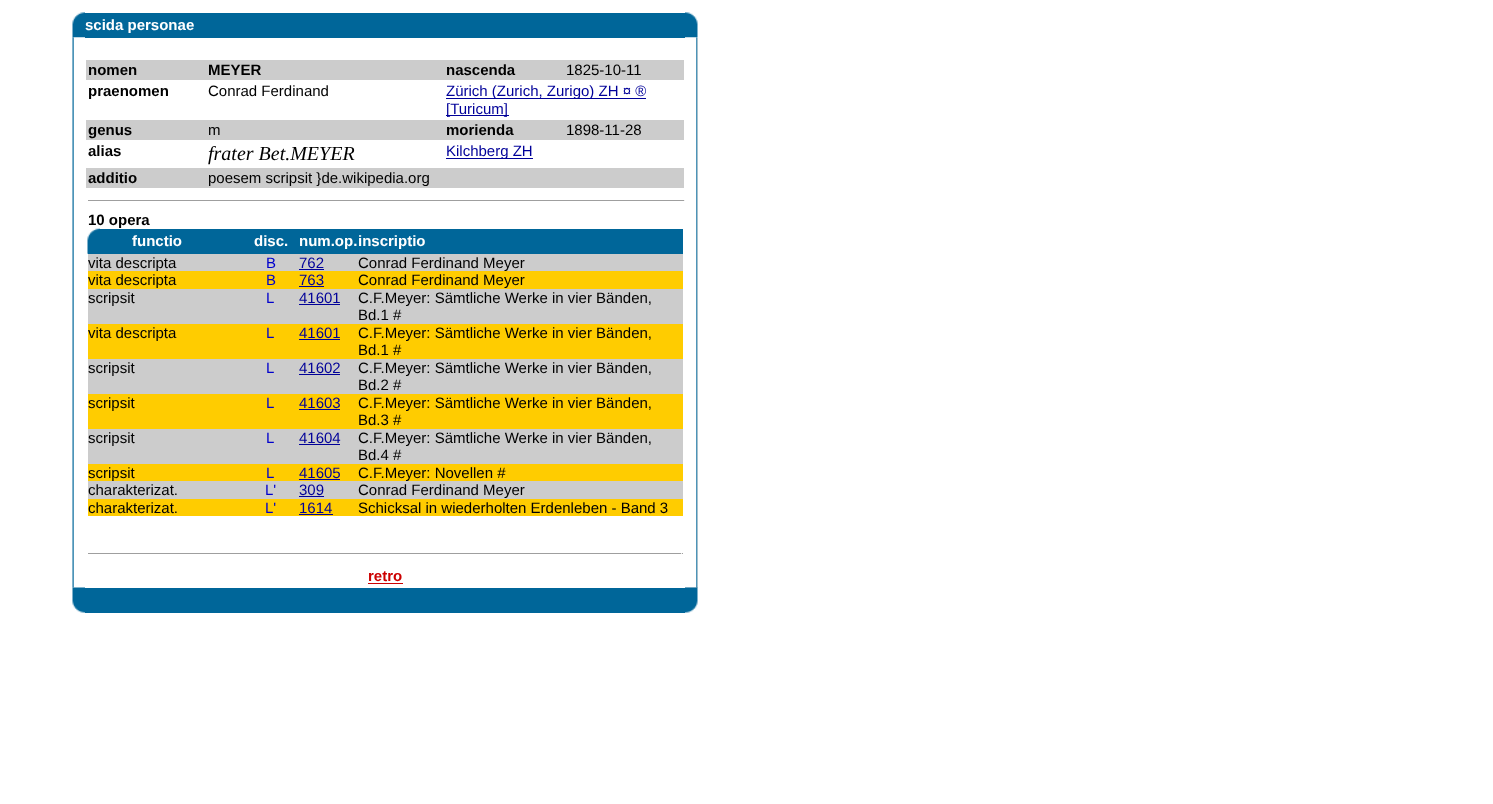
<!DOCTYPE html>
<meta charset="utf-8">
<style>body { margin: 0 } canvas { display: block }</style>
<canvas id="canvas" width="1493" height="804"></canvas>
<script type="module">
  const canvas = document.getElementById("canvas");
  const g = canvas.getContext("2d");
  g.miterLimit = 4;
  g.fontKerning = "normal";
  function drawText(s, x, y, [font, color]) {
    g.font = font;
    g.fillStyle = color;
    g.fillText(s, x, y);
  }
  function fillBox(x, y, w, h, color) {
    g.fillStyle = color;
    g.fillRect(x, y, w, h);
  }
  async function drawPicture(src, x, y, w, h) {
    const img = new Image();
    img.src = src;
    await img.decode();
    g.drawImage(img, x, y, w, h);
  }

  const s1 = ["bold 15px Liberation Sans", "#FFFFFF"];
  const s2 = ["bold 15px Liberation Sans", "#000000"];
  const s3 = ["15px Liberation Sans", "#000000"];
  const s4 = ["15px Liberation Sans", "#000099"];
  const s5 = ["italic 20px Liberation Serif", "#000000"];
  const s6 = ["15px Liberation Sans", "#0000CC"];
  const s7 = ["bold 15px Liberation Sans", "#CC0000"];

  fillBox(0, 0, 1493, 804, "#FFFFFF");
  await drawPicture("pic1.png", 72, 12, 13, 26);
  fillBox(85, 13, 600, 25, "#006699");
  drawText("scida personae", 85, 30, s1);
  await drawPicture("pic2.png", 685, 12, 13, 26);
  await drawPicture("pic3.png", 72, 37, 13, 551);
  fillBox(86, 60, 598, 20, "#CCCCCC");
  drawText("nomen", 88, 75, s2);
  drawText("MEYER", 208, 75, s2);
  drawText("nascenda", 446, 75, s2);
  drawText("1825-10-11", 566, 75, s3);
  drawText("praenomen", 88, 96, s2);
  drawText("Conrad Ferdinand", 208, 96, s3);
  fillBox(446, 98, 200, 1, "#000099");
  drawText("Zürich (Zurich, Zurigo) ZH ¤ ®", 446, 96, s4);
  fillBox(446, 115, 63, 1, "#000099");
  drawText("[Turicum]", 446, 114, s4);
  fillBox(86, 120, 598, 20, "#CCCCCC");
  drawText("genus", 88, 135, s2);
  drawText("m", 208, 135, s3);
  drawText("morienda", 446, 135, s2);
  drawText("1898-11-28", 566, 135, s3);
  drawText("alias", 88, 156, s2);
  drawText("frater Bet.MEYER", 208, 160, s5);
  fillBox(446, 158, 87, 1, "#000099");
  drawText("Kilchberg ZH", 446, 156, s4);
  fillBox(86, 168, 598, 20, "#CCCCCC");
  drawText("additio", 88, 183, s2);
  drawText("poesem scripsit }de.wikipedia.org", 208, 183, s3);
  fillBox(88, 200, 597, 1, "#9F9F9F");
  fillBox(684, 200, 1, 1, "#EEEEEE");
  drawText("10 opera", 88, 225, s2);
  fillBox(88, 229, 595, 25, "#006699");
  await drawPicture("pic4.png", 87, 228, 13, 26);
  drawText("functio", 132, 246, s1);
  drawText("disc.", 254, 246, s1);
  drawText("num.op.", 299, 246, s1);
  drawText("inscriptio", 358, 246, s1);
  fillBox(88, 254, 595, 17, "#CCCCCC");
  fillBox(88, 271, 595, 18, "#FFCC00");
  drawText("vita descripta", 88, 268, s3);
  drawText("B", 266, 268, s6);
  drawText("762", 299, 268, s4);
  fillBox(299, 269, 25, 1, "#000099");
  drawText("Conrad Ferdinand Meyer", 358, 268, s3);
  drawText("vita descripta", 88, 285, s3);
  drawText("B", 266, 285, s6);
  drawText("763", 299, 285, s4);
  fillBox(299, 286, 25, 1, "#000099");
  drawText("Conrad Ferdinand Meyer", 358, 285, s3);
  fillBox(88, 289, 595, 35, "#CCCCCC");
  drawText("scripsit", 88, 303, s3);
  drawText("L", 266, 303, s6);
  drawText("41601", 299, 303, s4);
  fillBox(299, 304, 41, 1, "#000099");
  drawText("C.F.Meyer: Sämtliche Werke in vier Bänden,", 358, 303, s3);
  drawText("Bd.1 #", 358, 320, s3);
  fillBox(88, 324, 595, 35, "#FFCC00");
  drawText("vita descripta", 88, 338, s3);
  drawText("L", 266, 338, s6);
  drawText("41601", 299, 338, s4);
  fillBox(299, 339, 41, 1, "#000099");
  drawText("C.F.Meyer: Sämtliche Werke in vier Bänden,", 358, 338, s3);
  drawText("Bd.1 #", 358, 355, s3);
  fillBox(88, 359, 595, 35, "#CCCCCC");
  drawText("scripsit", 88, 373, s3);
  drawText("L", 266, 373, s6);
  drawText("41602", 299, 373, s4);
  fillBox(299, 374, 41, 1, "#000099");
  drawText("C.F.Meyer: Sämtliche Werke in vier Bänden,", 358, 373, s3);
  drawText("Bd.2 #", 358, 390, s3);
  fillBox(88, 394, 595, 35, "#FFCC00");
  drawText("scripsit", 88, 408, s3);
  drawText("L", 266, 408, s6);
  drawText("41603", 299, 408, s4);
  fillBox(299, 409, 41, 1, "#000099");
  drawText("C.F.Meyer: Sämtliche Werke in vier Bänden,", 358, 408, s3);
  drawText("Bd.3 #", 358, 425, s3);
  fillBox(88, 429, 595, 35, "#CCCCCC");
  drawText("scripsit", 88, 443, s3);
  drawText("L", 266, 443, s6);
  drawText("41604", 299, 443, s4);
  fillBox(299, 444, 41, 1, "#000099");
  drawText("C.F.Meyer: Sämtliche Werke in vier Bänden,", 358, 443, s3);
  drawText("Bd.4 #", 358, 460, s3);
  fillBox(88, 464, 595, 17, "#FFCC00");
  fillBox(88, 481, 595, 18, "#CCCCCC");
  drawText("scripsit", 88, 478, s3);
  drawText("L", 266, 478, s6);
  drawText("41605", 299, 478, s4);
  fillBox(299, 479, 41, 1, "#000099");
  drawText("C.F.Meyer: Novellen #", 358, 478, s3);
  drawText("charakterizat.", 88, 495, s3);
  drawText("L'", 265, 495, s6);
  drawText("309", 299, 495, s4);
  fillBox(299, 496, 25, 1, "#000099");
  drawText("Conrad Ferdinand Meyer", 358, 495, s3);
  fillBox(88, 499, 595, 17, "#FFCC00");
  drawText("charakterizat.", 88, 513, s3);
  drawText("L'", 265, 513, s6);
  drawText("1614", 299, 513, s4);
  fillBox(299, 514, 34, 1, "#000099");
  drawText("Schicksal in wiederholten Erdenleben - Band 3", 358, 513, s3);
  fillBox(88, 553, 595, 1, "#9F9F9F");
  fillBox(681, 553, 1, 1, "#EEEEEE");
  drawText("retro", 368, 581, s7);
  fillBox(368, 583, 35, 1, "#CC0000");
  fillBox(685, 38, 13, 550, "#CCCCCC");
  await drawPicture("pic5.png", 685, 37, 13, 551);
  await drawPicture("pic6.png", 72, 587, 13, 26);
  fillBox(85, 588, 600, 25, "#006699");
  await drawPicture("pic7.png", 685, 587, 13, 26);
</script>
